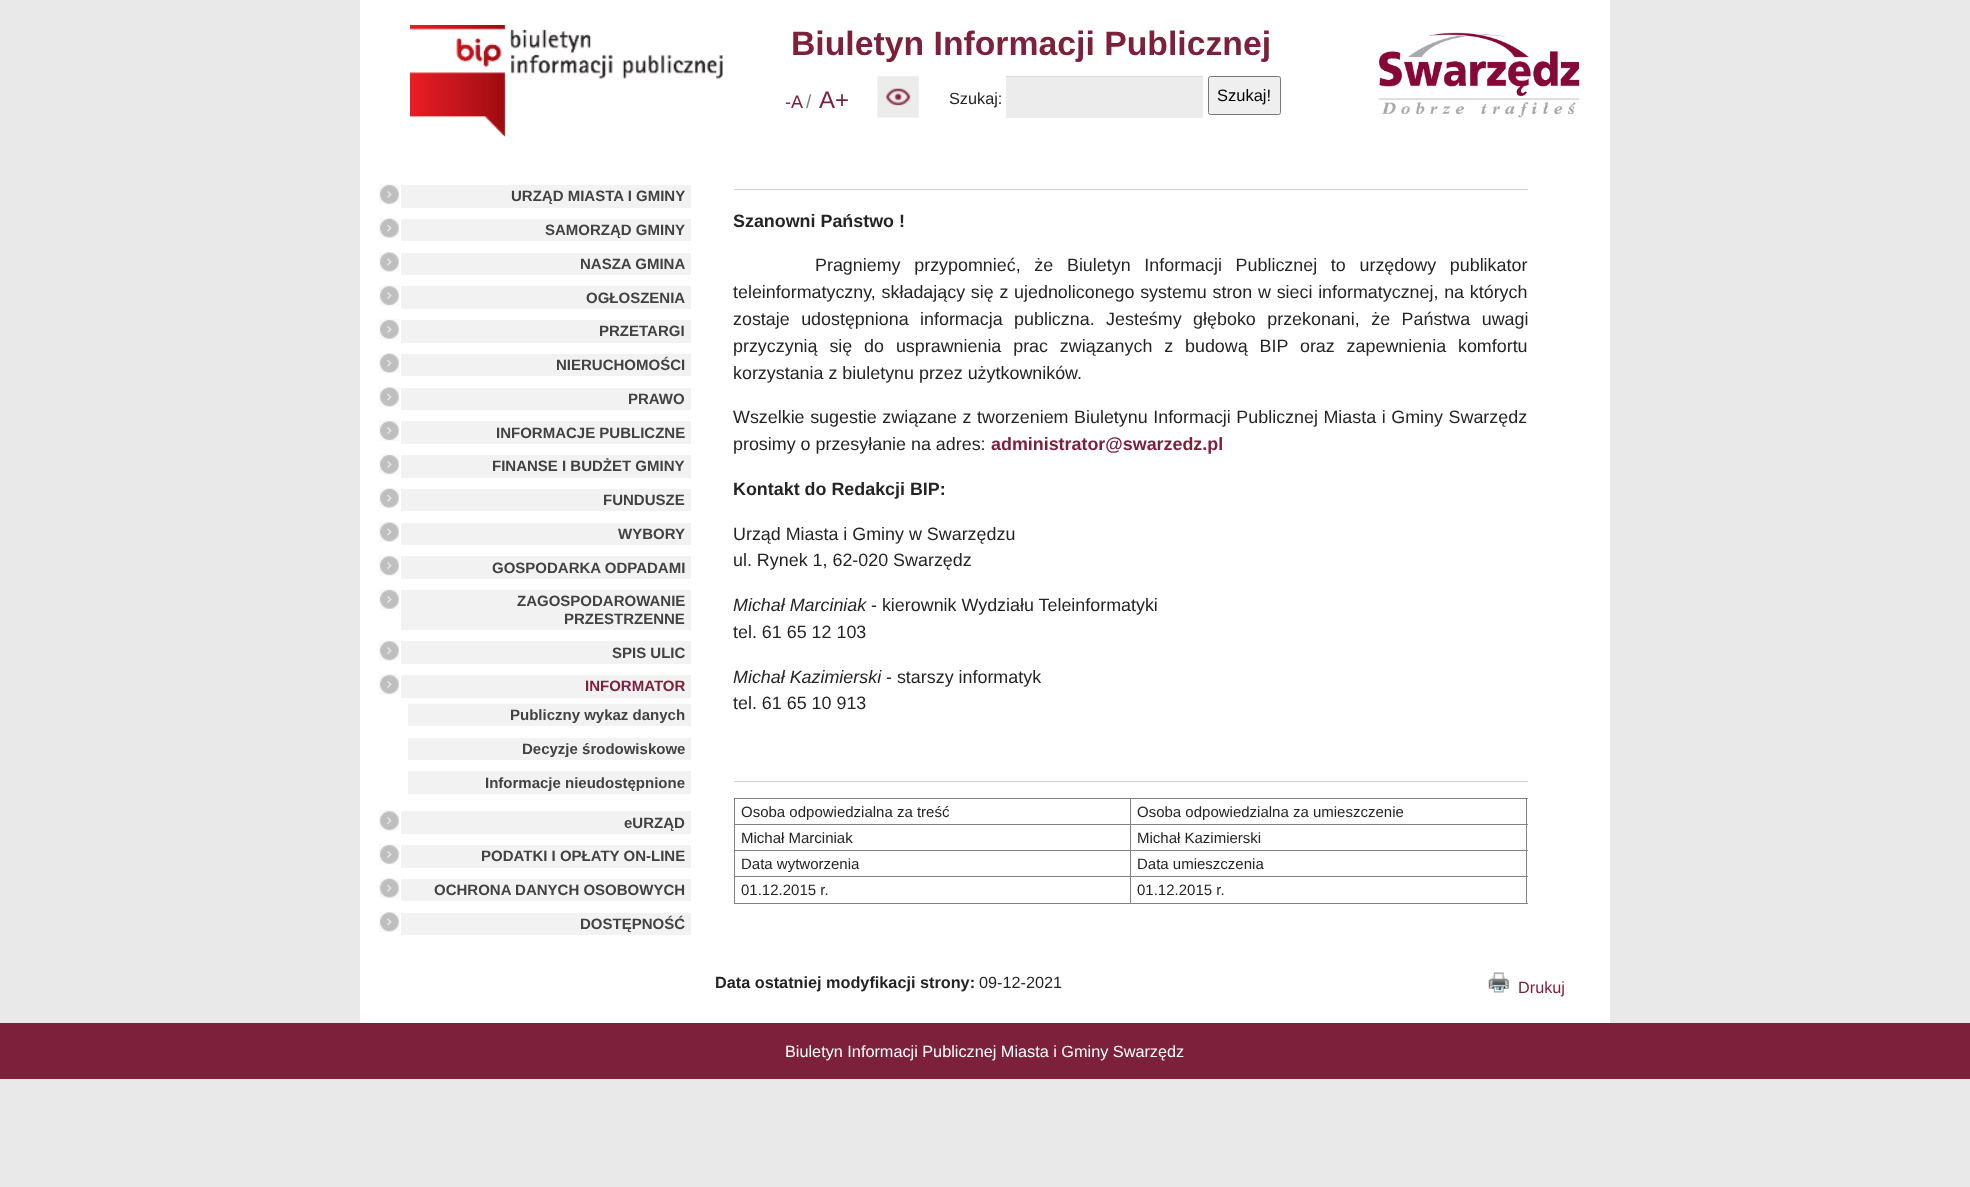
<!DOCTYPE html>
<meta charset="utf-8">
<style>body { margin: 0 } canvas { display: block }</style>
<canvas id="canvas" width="1970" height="1187"></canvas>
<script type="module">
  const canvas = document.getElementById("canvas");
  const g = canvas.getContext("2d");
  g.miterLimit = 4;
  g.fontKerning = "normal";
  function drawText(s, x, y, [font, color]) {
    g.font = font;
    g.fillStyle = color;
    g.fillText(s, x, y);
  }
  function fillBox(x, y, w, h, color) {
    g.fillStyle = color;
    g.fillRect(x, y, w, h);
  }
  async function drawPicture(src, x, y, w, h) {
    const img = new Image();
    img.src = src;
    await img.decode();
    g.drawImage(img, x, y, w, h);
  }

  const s1 = ["bold 33.75px Arimo", "#7D203B"];
  const s2 = ["18px Arimo", "#7D203B"];
  const s3 = ["19px Arimo", "#808080"];
  const s4 = ["24px Arimo", "#7D203B"];
  const s5 = ["16.25px Arimo", "#242424"];
  const s6 = ["16.5px Liberation Sans", "#000000"];
  const s7 = ["bold 15px Arimo", "#424242"];
  const s8 = ["bold 15px Arimo", "#7D203B"];
  const s9 = ["bold 17.9px Arimo", "#242424"];
  const s10 = ["17.9px Arimo", "#242424"];
  const s11 = ["bold 17.9px Arimo", "#7D203B"];
  const s12 = ["italic 17.9px Arimo", "#242424"];
  const s13 = ["15px Arimo", "#242424"];
  const s14 = ["bold 16.25px Arimo", "#242424"];
  const s15 = ["16.25px Arimo", "#7D203B"];
  const s16 = ["16.25px Arimo", "#FFFFFF"];

  fillBox(0, 0, 1970, 1187, "#E9E9E9");
  fillBox(360, 0, 1250, 1023, "#FFFFFF");
  await drawPicture("pic1.png", 410, 25, 313, 112);
  drawText("Biuletyn Informacji Publicznej", 791, 55, s1);
  await drawPicture("pic2.png", 1378, 32, 202, 86);
  drawText("-A", 785, 108, s2);
  drawText("/", 806, 108, s3);
  drawText("A+", 819, 108, s4);
  await drawPicture("pic3.png", 877, 76, 42, 42);
  drawText("Szukaj:", 949, 104, s5);
  fillBox(1006, 77, 197, 41, "#ECECEC");
  fillBox(1006, 76, 197, 1, "#DADADA");
  g.fillStyle = "#EFEFEF";
  g.beginPath();
  g.roundRect(1208.5, 76.5, 72, 38, 2);
  g.fill();
  g.strokeStyle = "#767676";
  g.stroke();
  drawText("Szukaj!", 1217, 101, s6);
  await drawPicture("pic4.png", 379, 184, 21, 21);
  fillBox(401, 185, 290, 23, "#F2F2F2");
  drawText("URZĄD MIASTA I GMINY", 511, 201, s7);
  await drawPicture("pic5.png", 379, 218, 21, 20);
  fillBox(401, 219, 290, 22, "#F2F2F2");
  drawText("SAMORZĄD GMINY", 545, 235, s7);
  await drawPicture("pic6.png", 379, 252, 21, 20);
  fillBox(401, 253, 290, 22, "#F2F2F2");
  drawText("NASZA GMINA", 580, 269, s7);
  await drawPicture("pic7.png", 379, 285, 21, 21);
  fillBox(401, 286, 290, 23, "#F2F2F2");
  drawText("OGŁOSZENIA", 586, 303, s7);
  await drawPicture("pic4.png", 379, 319, 21, 21);
  fillBox(401, 320, 290, 23, "#F2F2F2");
  drawText("PRZETARGI", 599, 336, s7);
  await drawPicture("pic5.png", 379, 353, 21, 20);
  fillBox(401, 354, 290, 22, "#F2F2F2");
  drawText("NIERUCHOMOŚCI", 556, 370, s7);
  await drawPicture("pic6.png", 379, 387, 21, 20);
  fillBox(401, 388, 290, 22, "#F2F2F2");
  drawText("PRAWO", 628, 404, s7);
  await drawPicture("pic8.png", 379, 420, 21, 21);
  fillBox(401, 421, 290, 23, "#F2F2F2");
  drawText("INFORMACJE PUBLICZNE", 496, 438, s7);
  await drawPicture("pic4.png", 379, 454, 21, 21);
  fillBox(401, 455, 290, 23, "#F2F2F2");
  drawText("FINANSE I BUDŻET GMINY", 492, 471, s7);
  await drawPicture("pic5.png", 379, 488, 21, 20);
  fillBox(401, 489, 290, 22, "#F2F2F2");
  drawText("FUNDUSZE", 603, 505, s7);
  await drawPicture("pic6.png", 379, 522, 21, 20);
  fillBox(401, 523, 290, 22, "#F2F2F2");
  drawText("WYBORY", 618, 539, s7);
  await drawPicture("pic8.png", 379, 555, 21, 21);
  fillBox(401, 556, 290, 23, "#F2F2F2");
  drawText("GOSPODARKA ODPADAMI", 492, 573, s7);
  await drawPicture("pic4.png", 379, 589, 21, 21);
  fillBox(401, 590, 290, 40, "#F2F2F2");
  drawText("ZAGOSPODAROWANIE", 517, 606, s7);
  drawText("PRZESTRZENNE", 564, 624, s7);
  await drawPicture("pic8.png", 379, 640, 21, 21);
  fillBox(401, 641, 290, 23, "#F2F2F2");
  drawText("SPIS ULIC", 612, 658, s7);
  await drawPicture("pic4.png", 379, 674, 21, 21);
  fillBox(401, 675, 290, 23, "#F2F2F2");
  drawText("INFORMATOR", 585, 691, s8);
  fillBox(408, 704, 283, 22, "#F2F2F2");
  drawText("Publiczny wykaz danych", 510, 720, s7);
  fillBox(408, 738, 283, 22, "#F2F2F2");
  drawText("Decyzje środowiskowe", 522, 754, s7);
  fillBox(408, 771, 283, 23, "#F2F2F2");
  drawText("Informacje nieudostępnione", 485, 788, s7);
  await drawPicture("pic8.png", 379, 810, 21, 21);
  fillBox(401, 811, 290, 23, "#F2F2F2");
  drawText("eURZĄD", 624, 828, s7);
  await drawPicture("pic4.png", 379, 844, 21, 21);
  fillBox(401, 845, 290, 23, "#F2F2F2");
  drawText("PODATKI I OPŁATY ON-LINE", 481, 861, s7);
  await drawPicture("pic5.png", 379, 878, 21, 20);
  fillBox(401, 879, 290, 22, "#F2F2F2");
  drawText("OCHRONA DANYCH OSOBOWYCH", 434, 895, s7);
  await drawPicture("pic6.png", 379, 912, 21, 20);
  fillBox(401, 913, 290, 22, "#F2F2F2");
  drawText("DOSTĘPNOŚĆ", 580, 929, s7);
  fillBox(734, 189, 794, 1, "#D3D3D3");
  drawText("Szanowni Państwo !", 733, 227, s9);
  g.wordSpacing = "8.75px";
  drawText("Pragniemy przypomnieć, że Biuletyn Informacji Publicznej to urzędowy publikator", 815, 271, s10);
  g.wordSpacing = "0.75px";
  drawText("teleinformatyczny, składający się z ujednoliconego systemu stron w sieci informatycznej, na których", 733, 298, s10);
  g.wordSpacing = "6.5px";
  drawText("zostaje udostępniona informacja publiczna. Jesteśmy głęboko przekonani, że Państwa uwagi", 733, 325, s10);
  g.wordSpacing = "6.9px";
  drawText("przyczynią się do usprawnienia prac związanych z budową BIP oraz zapewnienia komfortu", 733, 352, s10);
  g.wordSpacing = "0px";
  drawText("korzystania z biuletynu przez użytkowników.", 733, 379, s10);
  g.wordSpacing = "0.6px";
  drawText("Wszelkie sugestie związane z tworzeniem Biuletynu Informacji Publicznej Miasta i Gminy Swarzędz", 733, 423, s10);
  g.wordSpacing = "0px";
  drawText("prosimy o przesyłanie na adres:", 733, 450, s10);
  drawText("administrator@swarzedz.pl", 991, 450, s11);
  drawText("Kontakt do Redakcji BIP:", 733, 495, s9);
  drawText("Urząd Miasta i Gminy w Swarzędzu", 733, 540, s10);
  drawText("ul. Rynek 1, 62-020 Swarzędz", 733, 566, s10);
  drawText("Michał Marciniak", 733, 611, s12);
  drawText("- kierownik Wydziału Teleinformatyki", 871, 611, s10);
  drawText("tel. 61 65 12 103", 733, 638, s10);
  drawText("Michał Kazimierski", 733, 683, s12);
  drawText("- starszy informatyk", 886, 683, s10);
  drawText("tel. 61 65 10 913", 733, 709, s10);
  fillBox(734, 781, 794, 1, "#D3D3D3");
  fillBox(734, 798, 794, 1, "#828282");
  fillBox(1526, 798, 1, 106, "#828282");
  fillBox(734, 903, 794, 1, "#828282");
  fillBox(734, 798, 1, 106, "#828282");
  drawText("Osoba odpowiedzialna za treść", 741, 817, s13);
  fillBox(1130, 824, 398, 1, "#828282");
  fillBox(1130, 850, 398, 1, "#828282");
  fillBox(1130, 876, 398, 1, "#828282");
  fillBox(1130, 876, 1, 28, "#828282");
  fillBox(734, 876, 397, 1, "#828282");
  fillBox(1130, 850, 1, 28, "#828282");
  fillBox(734, 850, 397, 1, "#828282");
  fillBox(1130, 824, 1, 27, "#828282");
  fillBox(734, 824, 397, 1, "#828282");
  fillBox(1130, 798, 1, 27, "#828282");
  drawText("Osoba odpowiedzialna za umieszczenie", 1137, 817, s13);
  drawText("Michał Marciniak", 741, 843, s13);
  drawText("Michał Kazimierski", 1137, 843, s13);
  drawText("Data wytworzenia", 741, 869, s13);
  drawText("Data umieszczenia", 1137, 869, s13);
  drawText("01.12.2015 r.", 741, 895, s13);
  drawText("01.12.2015 r.", 1137, 895, s13);
  drawText("Data ostatniej modyfikacji strony:", 715, 988, s14);
  drawText("09-12-2021", 979, 988, s5);
  await drawPicture("pic9.png", 1488, 972, 21, 21);
  drawText("Drukuj", 1518, 993, s15);
  fillBox(0, 1023, 1970, 56, "#7D203B");
  drawText("Biuletyn Informacji Publicznej Miasta i Gminy Swarzędz", 785, 1057, s16);
</script>
